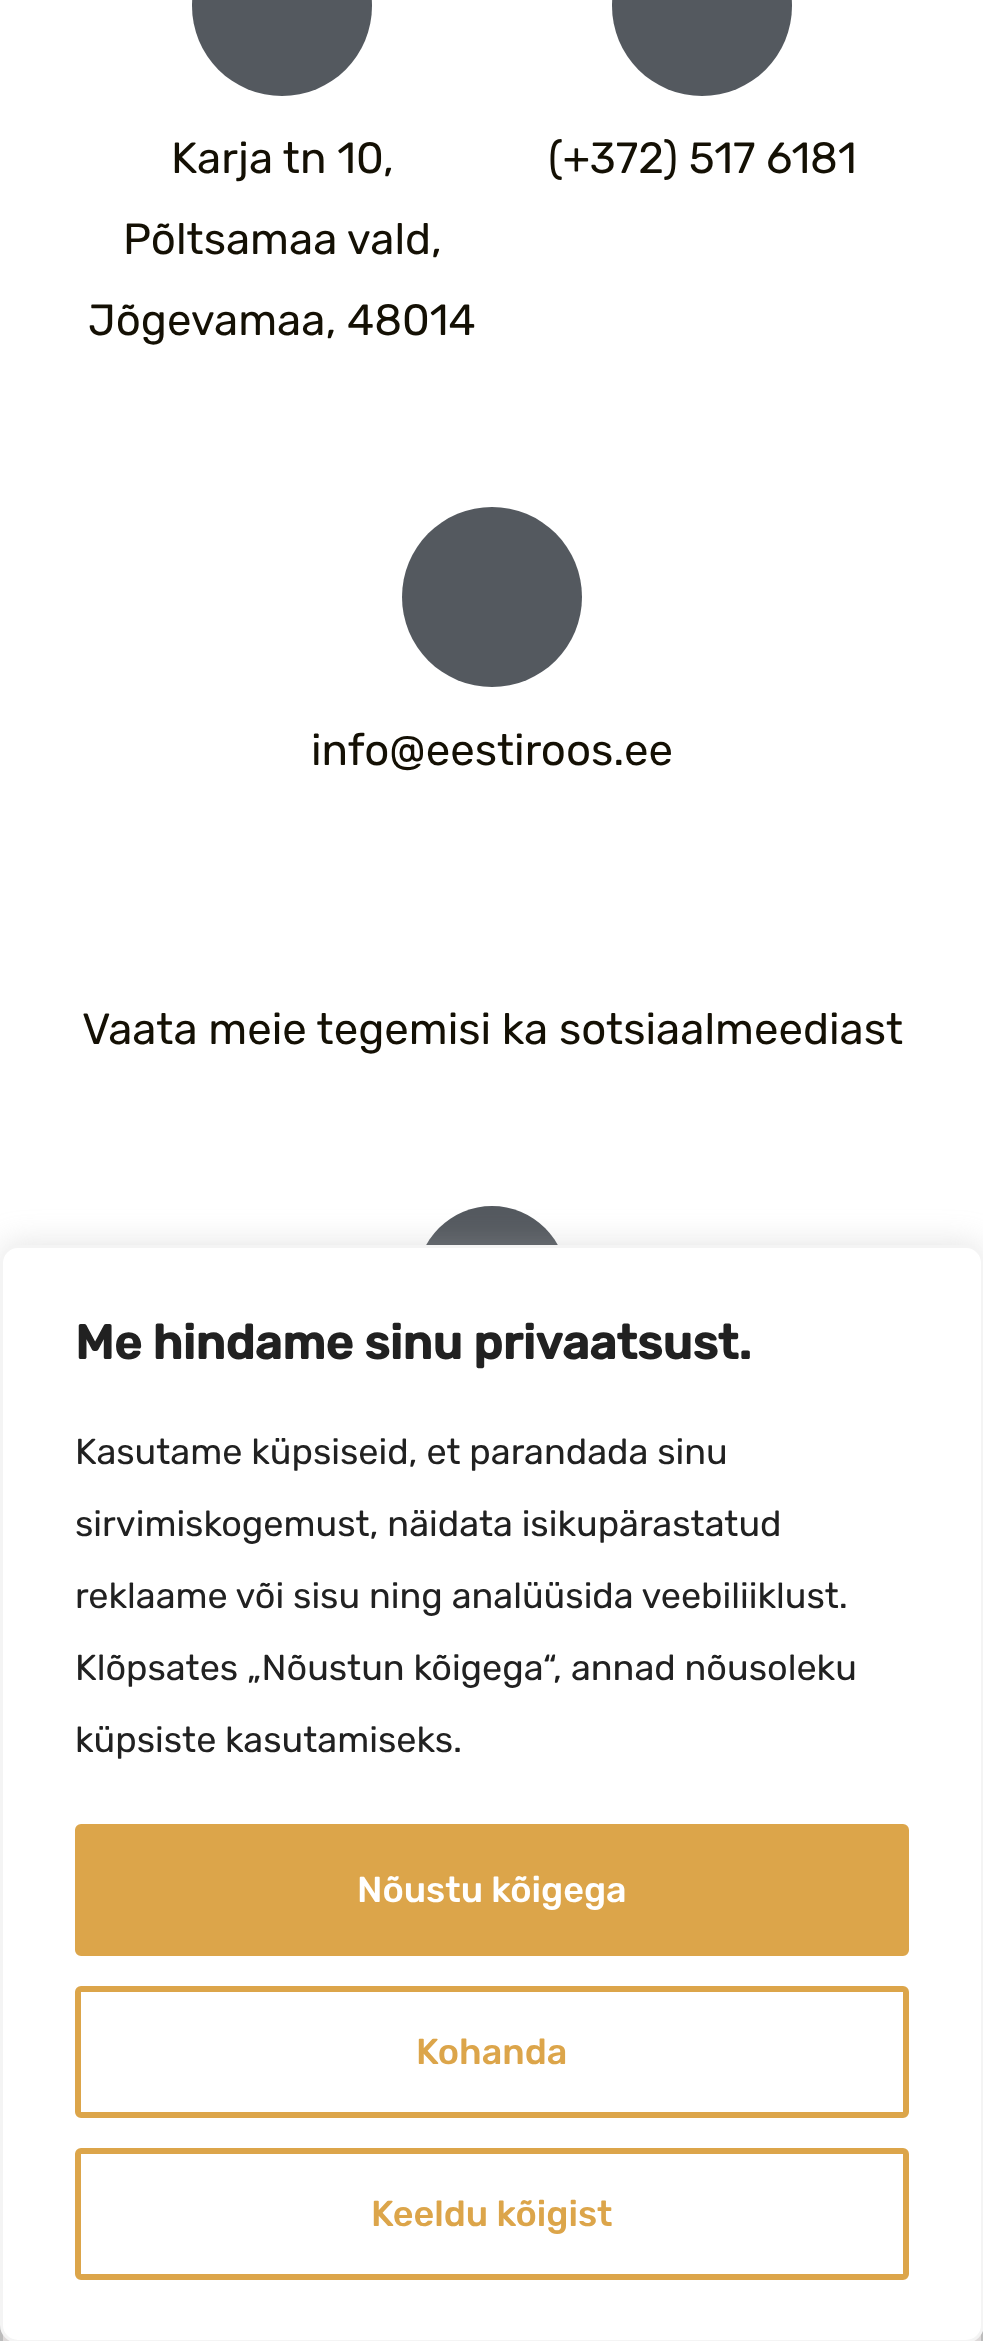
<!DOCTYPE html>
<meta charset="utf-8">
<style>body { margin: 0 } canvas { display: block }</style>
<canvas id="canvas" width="983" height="2341"></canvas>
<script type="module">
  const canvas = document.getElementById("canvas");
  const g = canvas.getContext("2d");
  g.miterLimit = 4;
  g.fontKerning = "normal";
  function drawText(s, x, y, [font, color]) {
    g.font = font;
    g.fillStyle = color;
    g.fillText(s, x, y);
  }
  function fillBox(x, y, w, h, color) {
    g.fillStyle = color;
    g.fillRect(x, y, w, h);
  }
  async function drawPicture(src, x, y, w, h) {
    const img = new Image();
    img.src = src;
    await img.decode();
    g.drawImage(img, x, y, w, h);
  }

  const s1 = ["43.75px Rubik", "#141004"];
  const s2 = ["bold 48px Rubik", "#212121"];
  const s3 = ["36px Rubik", "#212121"];
  const s4 = ["500 36px Rubik", "#FFFFFF"];
  const s5 = ["500 36px Rubik", "#DCA54A"];

  fillBox(0, 0, 983, 2341, "#FFFFFF");
  g.fillStyle = "#54595F";
  g.beginPath();
  g.arc(282, 6, 90, 0, Math.PI * 2);
  g.fill();
  drawText("Karja tn 10,", 171, 173, s1);
  drawText("Põltsamaa vald,", 123, 254, s1);
  drawText("Jõgevamaa, 48014", 88, 335, s1);
  g.fillStyle = "#54595F";
  g.beginPath();
  g.arc(702, 6, 90, 0, Math.PI * 2);
  g.fill();
  drawText("(+372) 517 6181", 548, 173, s1);
  g.fillStyle = "#54595F";
  g.beginPath();
  g.arc(492, 597, 90, 0, Math.PI * 2);
  g.fill();
  drawText("info@eestiroos.ee", 311, 765, s1);
  drawText("Vaata meie tegemisi ka sotsiaalmeediast", 82, 1044, s1);
  g.fillStyle = "#54595F";
  g.beginPath();
  g.arc(492, 1281, 75, 0, Math.PI * 2);
  g.fill();
  await drawPicture("pic1.png", 0, 2325, 983, 16);
  g.fillStyle = "rgba(172, 171, 171, 0.3)";
  g.filter = "blur(15px)";
  g.beginPath();
  g.roundRect(0, 1242, 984, 1098, 18);
  g.fill();
  g.filter = "none";
  g.fillStyle = "#FFFFFF";
  g.beginPath();
  g.roundRect(1.5, 1246.5, 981, 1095, 16.5);
  g.fill();
  g.strokeStyle = "#F4F4F4";
  g.lineWidth = 3;
  g.stroke();
  drawText("Me hindame sinu privaatsust.", 75, 1359, s2);
  drawText("Kasutame küpsiseid, et parandada sinu", 75, 1464, s3);
  drawText("sirvimiskogemust, näidata isikupärastatud", 75, 1536, s3);
  drawText("reklaame või sisu ning analüüsida veebiliiklust.", 75, 1608, s3);
  drawText("Klõpsates „Nõustun kõigega“, annad nõusoleku", 75, 1680, s3);
  drawText("küpsiste kasutamiseks.", 75, 1752, s3);
  g.fillStyle = "#DCA54A";
  g.beginPath();
  g.roundRect(78, 1827, 828, 126, 3);
  g.fill();
  g.strokeStyle = "#DCA54A";
  g.lineWidth = 6;
  g.stroke();
  drawText("Nõustu kõigega", 357, 1902, s4);
  g.beginPath();
  g.roundRect(78, 1989, 828, 126, 3);
  g.stroke();
  drawText("Kohanda", 416, 2064, s5);
  g.beginPath();
  g.roundRect(78, 2151, 828, 126, 3);
  g.stroke();
  drawText("Keeldu kõigist", 371, 2226, s5);
</script>
